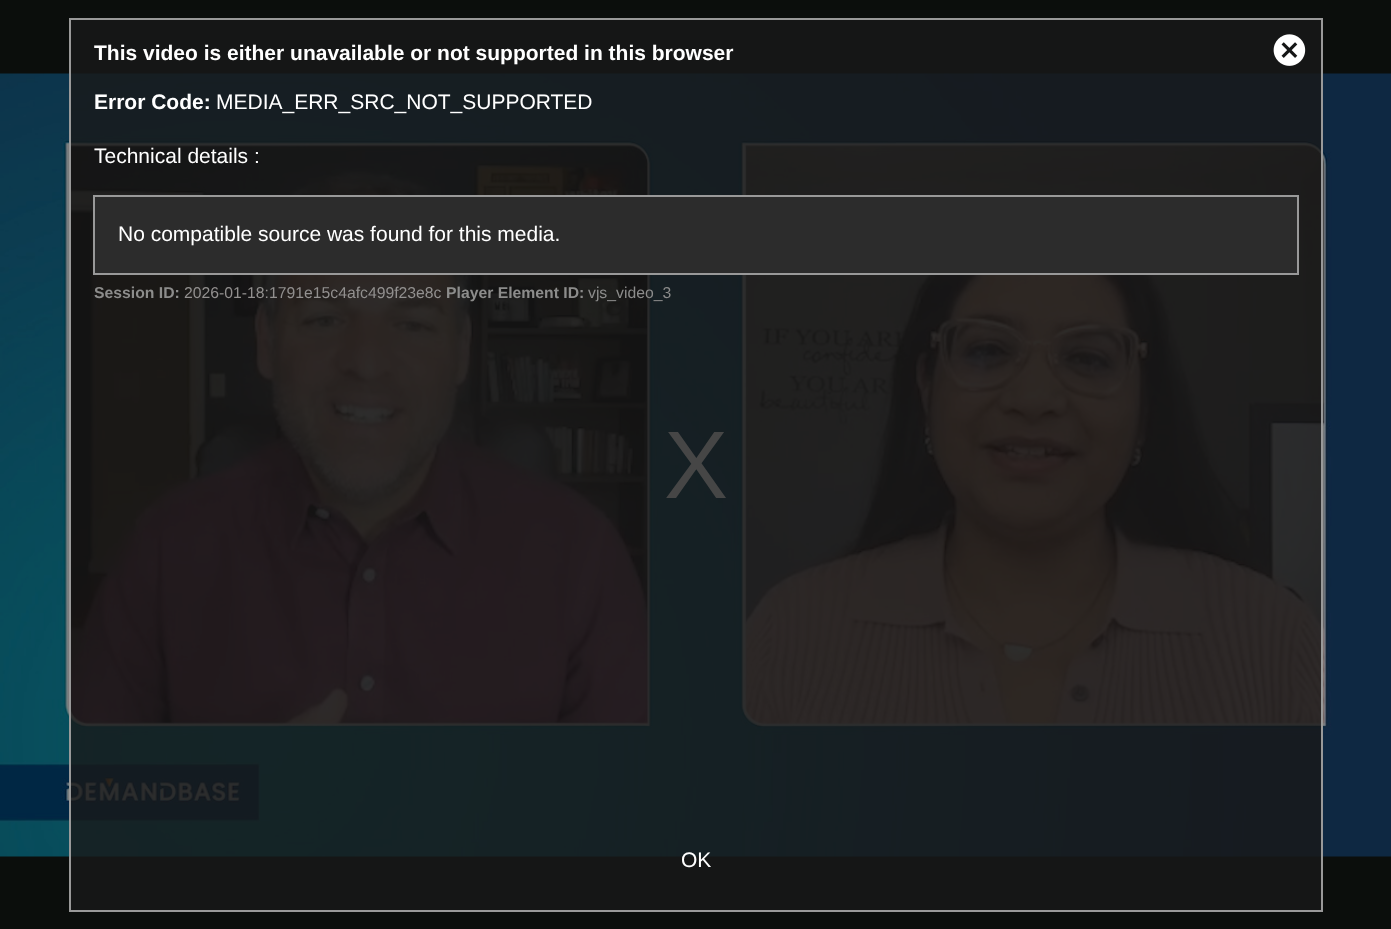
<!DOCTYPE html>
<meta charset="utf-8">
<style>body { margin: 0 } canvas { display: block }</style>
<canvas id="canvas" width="1391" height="929"></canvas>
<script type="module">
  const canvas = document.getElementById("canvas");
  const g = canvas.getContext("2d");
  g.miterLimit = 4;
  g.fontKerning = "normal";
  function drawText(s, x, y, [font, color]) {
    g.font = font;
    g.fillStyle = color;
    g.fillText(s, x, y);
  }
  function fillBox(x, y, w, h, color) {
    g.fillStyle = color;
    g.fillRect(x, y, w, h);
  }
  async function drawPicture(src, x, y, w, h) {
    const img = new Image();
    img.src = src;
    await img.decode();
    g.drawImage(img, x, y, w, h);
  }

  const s1 = ["bold 21px Liberation Sans", "#FFFFFF"];
  const s2 = ["21px Liberation Sans", "#FFFFFF"];
  const s3 = ["bold 15.75px Liberation Sans", "#8C8C8B"];
  const s4 = ["15.75px Liberation Sans", "#92908F"];
  const s5 = ["15.75px Liberation Sans", "#8C8C8B"];
  const s6 = ["96px Liberation Sans", "#464646"];

  fillBox(0, 0, 1391, 929, "#0B0E0C");
  fillBox(71, 20, 1250, 890, "#151616");
  await drawPicture("pic1.png", 0, 73, 1391, 784);
  g.strokeStyle = "#999999";
  g.lineWidth = 2;
  g.strokeRect(70, 19, 1252, 892);
  drawText("This video is either unavailable or not supported in this browser", 94, 60, s1);
  drawText("Error Code:", 94, 109, s1);
  drawText("MEDIA_ERR_SRC_NOT_SUPPORTED", 216, 109, s2);
  drawText("Technical details :", 94, 163, s2);
  g.fillStyle = "#2C2C2C";
  g.beginPath();
  g.rect(94, 196, 1204, 78);
  g.fill();
  g.stroke();
  drawText("No compatible source was found for this media.", 118, 241, s2);
  drawText("Session ID:", 94, 298, s3);
  drawText("2026-01-18:1791e15c4afc499f23e8c", 184, 298, s4);
  drawText("Player Element ID:", 446, 298, s3);
  drawText("vjs_video_3", 588, 298, s5);
  await drawPicture("pic2.png", 1273, 34, 33, 32);
  drawText("OK", 681, 867, s2);
  drawText("X", 664, 498, s6);
</script>
